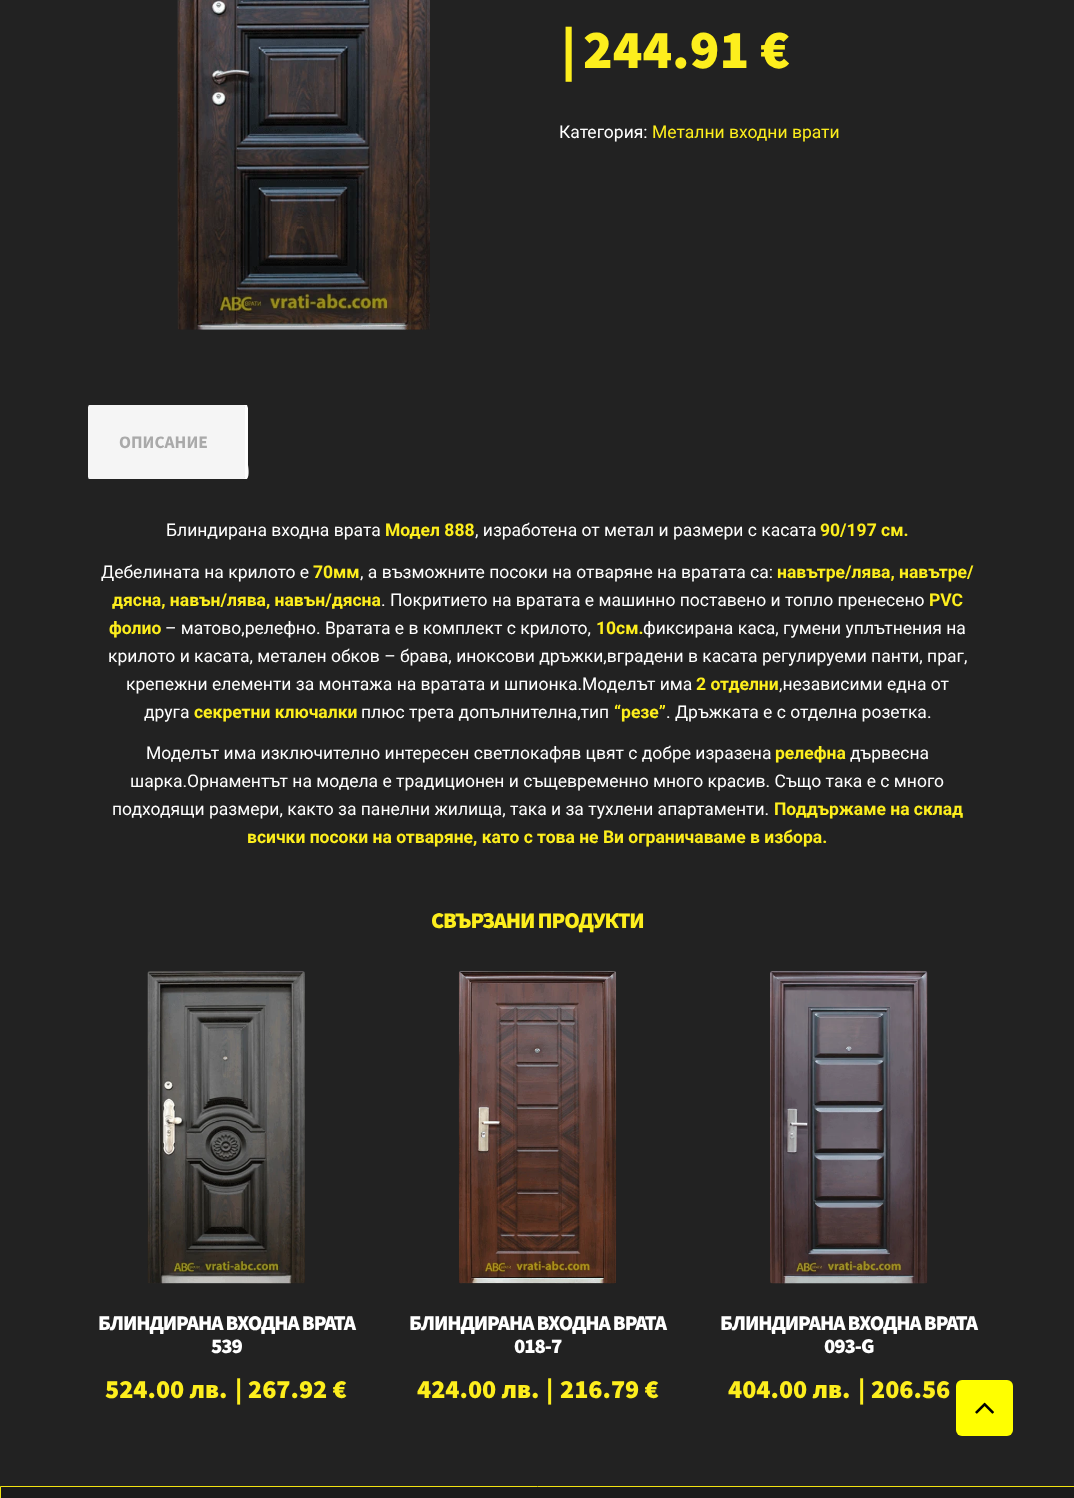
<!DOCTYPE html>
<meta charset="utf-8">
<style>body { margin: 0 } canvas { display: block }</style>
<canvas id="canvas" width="1074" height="1498"></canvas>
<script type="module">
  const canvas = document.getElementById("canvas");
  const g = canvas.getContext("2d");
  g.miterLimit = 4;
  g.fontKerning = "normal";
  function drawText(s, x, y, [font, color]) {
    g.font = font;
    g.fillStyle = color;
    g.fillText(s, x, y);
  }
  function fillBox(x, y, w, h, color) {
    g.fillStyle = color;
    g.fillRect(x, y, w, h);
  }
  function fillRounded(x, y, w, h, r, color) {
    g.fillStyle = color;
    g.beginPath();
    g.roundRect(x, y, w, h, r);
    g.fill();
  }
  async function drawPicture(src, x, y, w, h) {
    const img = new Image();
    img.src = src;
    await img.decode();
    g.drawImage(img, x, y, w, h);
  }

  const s1 = ["900 55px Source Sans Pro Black", "#FDEE1D"];
  const s2 = ["17.5px Roboto", "#FFFFFF"];
  const s3 = ["17.5px Roboto", "#FDEE1D"];
  const s4 = ["bold 17.5px Source Sans Pro", "#AAAAAA"];
  const s5 = ["bold 17.5px Roboto", "#FDEE1D"];
  const s6 = ["900 22.5px Source Sans Pro Black", "#FDEE1D"];
  const s7 = ["900 21px Source Sans Pro Black", "#FFFFFF"];
  const s8 = ["900 26.25px Source Sans Pro Black", "#FDEE1D"];

  fillBox(0, 0, 1074, 1498, "#222222");
  await drawPicture("pic1.png", 177, 0, 253, 330);
  drawText("|", 561, 68, s1);
  drawText("244.91 €", 583, 68, s1);
  drawText("Категория:", 559, 138, s2);
  drawText("Метални входни врати", 652, 138, s3);
  g.fillStyle = "#FFFFFF";
  g.beginPath();
  g.moveTo(90, 405);
  g.lineTo(247, 405);
  g.lineTo(248, 408);
  g.lineTo(248, 465);
  g.bezierCurveTo(248, 465, 250, 476, 247, 479);
  g.lineTo(90, 479);
  g.lineTo(88, 478);
  g.lineTo(243, 478);
  g.bezierCurveTo(244, 478, 245, 477, 245, 476);
  g.lineTo(245, 408);
  g.bezierCurveTo(245, 407, 244, 406, 243, 406);
  g.lineTo(88, 406);
  g.closePath();
  g.fill();
  fillRounded(88, 405, 157, 74, 2.5, "#F5F5F5");
  drawText("ОПИСАНИЕ", 119, 448, s4);
  drawText("Блиндирана входна врата", 166, 536, s2);
  drawText("Модел 888", 385, 536, s5);
  drawText(", изработена от метал и размери с касата", 475, 536, s2);
  drawText("90/197 см.", 820, 536, s5);
  drawText("Дебелината на крилото е", 101, 578, s2);
  drawText("70мм", 313, 578, s5);
  drawText(", а възможните посоки на отваряне на вратата са:", 360, 578, s2);
  drawText("навътре/лява, навътре/", 777, 578, s5);
  drawText("дясна, навън/лява, навън/дясна", 112, 606, s5);
  drawText(". Покритието на вратата е машинно поставено и топло пренесено", 381, 606, s2);
  drawText("PVC", 929, 606, s5);
  drawText("фолио", 109, 634, s5);
  drawText("– матово,релефно. Вратата е в комплект с крилото,", 165, 634, s2);
  drawText("10см.", 596, 634, s5);
  drawText("фиксирана каса, гумени уплътнения на", 643, 634, s2);
  drawText("крилото и касата, метален обков – брава, иноксови дръжки,вградени в касата регулируеми панти, праг,", 108, 662, s2);
  drawText("крепежни елементи за монтажа на вратата и шпионка.Моделът има", 126, 690, s2);
  drawText("2 отделни", 696, 690, s5);
  drawText(",независими една от", 779, 690, s2);
  drawText("друга", 144, 718, s2);
  drawText("секретни ключалки", 194, 718, s5);
  drawText("плюс трета допълнителна,тип", 361, 718, s2);
  drawText("“резе”", 614, 718, s5);
  drawText(". Дръжката е с отделна розетка.", 666, 718, s2);
  drawText("Моделът има изключително интересен светлокафяв цвят с добре изразена", 146, 759, s2);
  drawText("релефна", 775, 759, s5);
  drawText("дървесна", 850, 759, s2);
  drawText("шарка.Орнаментът на модела е традиционен и същевременно много красив. Също така е с много", 130, 787, s2);
  drawText("подходящи размери, както за панелни жилища, така и за тухлени апартаменти.", 112, 815, s2);
  drawText("Поддържаме на склад", 774, 815, s5);
  drawText("всички посоки на отваряне, като с това не Ви ограничаваме в избора.", 247, 843, s5);
  g.letterSpacing = "-1.1px";
  drawText("СВЪРЗАНИ ПРОДУКТИ", 431, 928, s6);
  await drawPicture("pic2.png", 147, 971, 158, 313);
  g.letterSpacing = "-1.05px";
  drawText("БЛИНДИРАНА ВХОДНА ВРАТА", 98, 1330, s7);
  drawText("539", 211, 1353, s7);
  g.letterSpacing = "0px";
  drawText("524.00 лв.", 105, 1398, s8);
  drawText("|", 235, 1398, s8);
  drawText("267.92 €", 248, 1398, s8);
  await drawPicture("pic3.png", 458, 971, 159, 313);
  g.letterSpacing = "-1.05px";
  drawText("БЛИНДИРАНА ВХОДНА ВРАТА", 409, 1330, s7);
  drawText("018-7", 514, 1353, s7);
  g.letterSpacing = "0px";
  drawText("424.00 лв.", 417, 1398, s8);
  drawText("|", 546, 1398, s8);
  drawText("216.79 €", 560, 1398, s8);
  await drawPicture("pic4.png", 770, 971, 158, 313);
  g.letterSpacing = "-1.05px";
  drawText("БЛИНДИРАНА ВХОДНА ВРАТА", 720, 1330, s7);
  drawText("093-G", 824, 1353, s7);
  g.letterSpacing = "0px";
  drawText("404.00 лв.", 728, 1398, s8);
  drawText("|", 858, 1398, s8);
  drawText("206.56", 871, 1398, s8);
  g.fillStyle = "#1B1B1B";
  g.beginPath();
  g.rect(0.5, 1486.5, 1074, 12);
  g.fill();
  g.strokeStyle = "#F3E411";
  g.stroke();
  fillRounded(956, 1380, 57, 56, 6, "#FFFF00");
  await drawPicture("pic5.png", 975, 1402, 19, 12);
</script>
